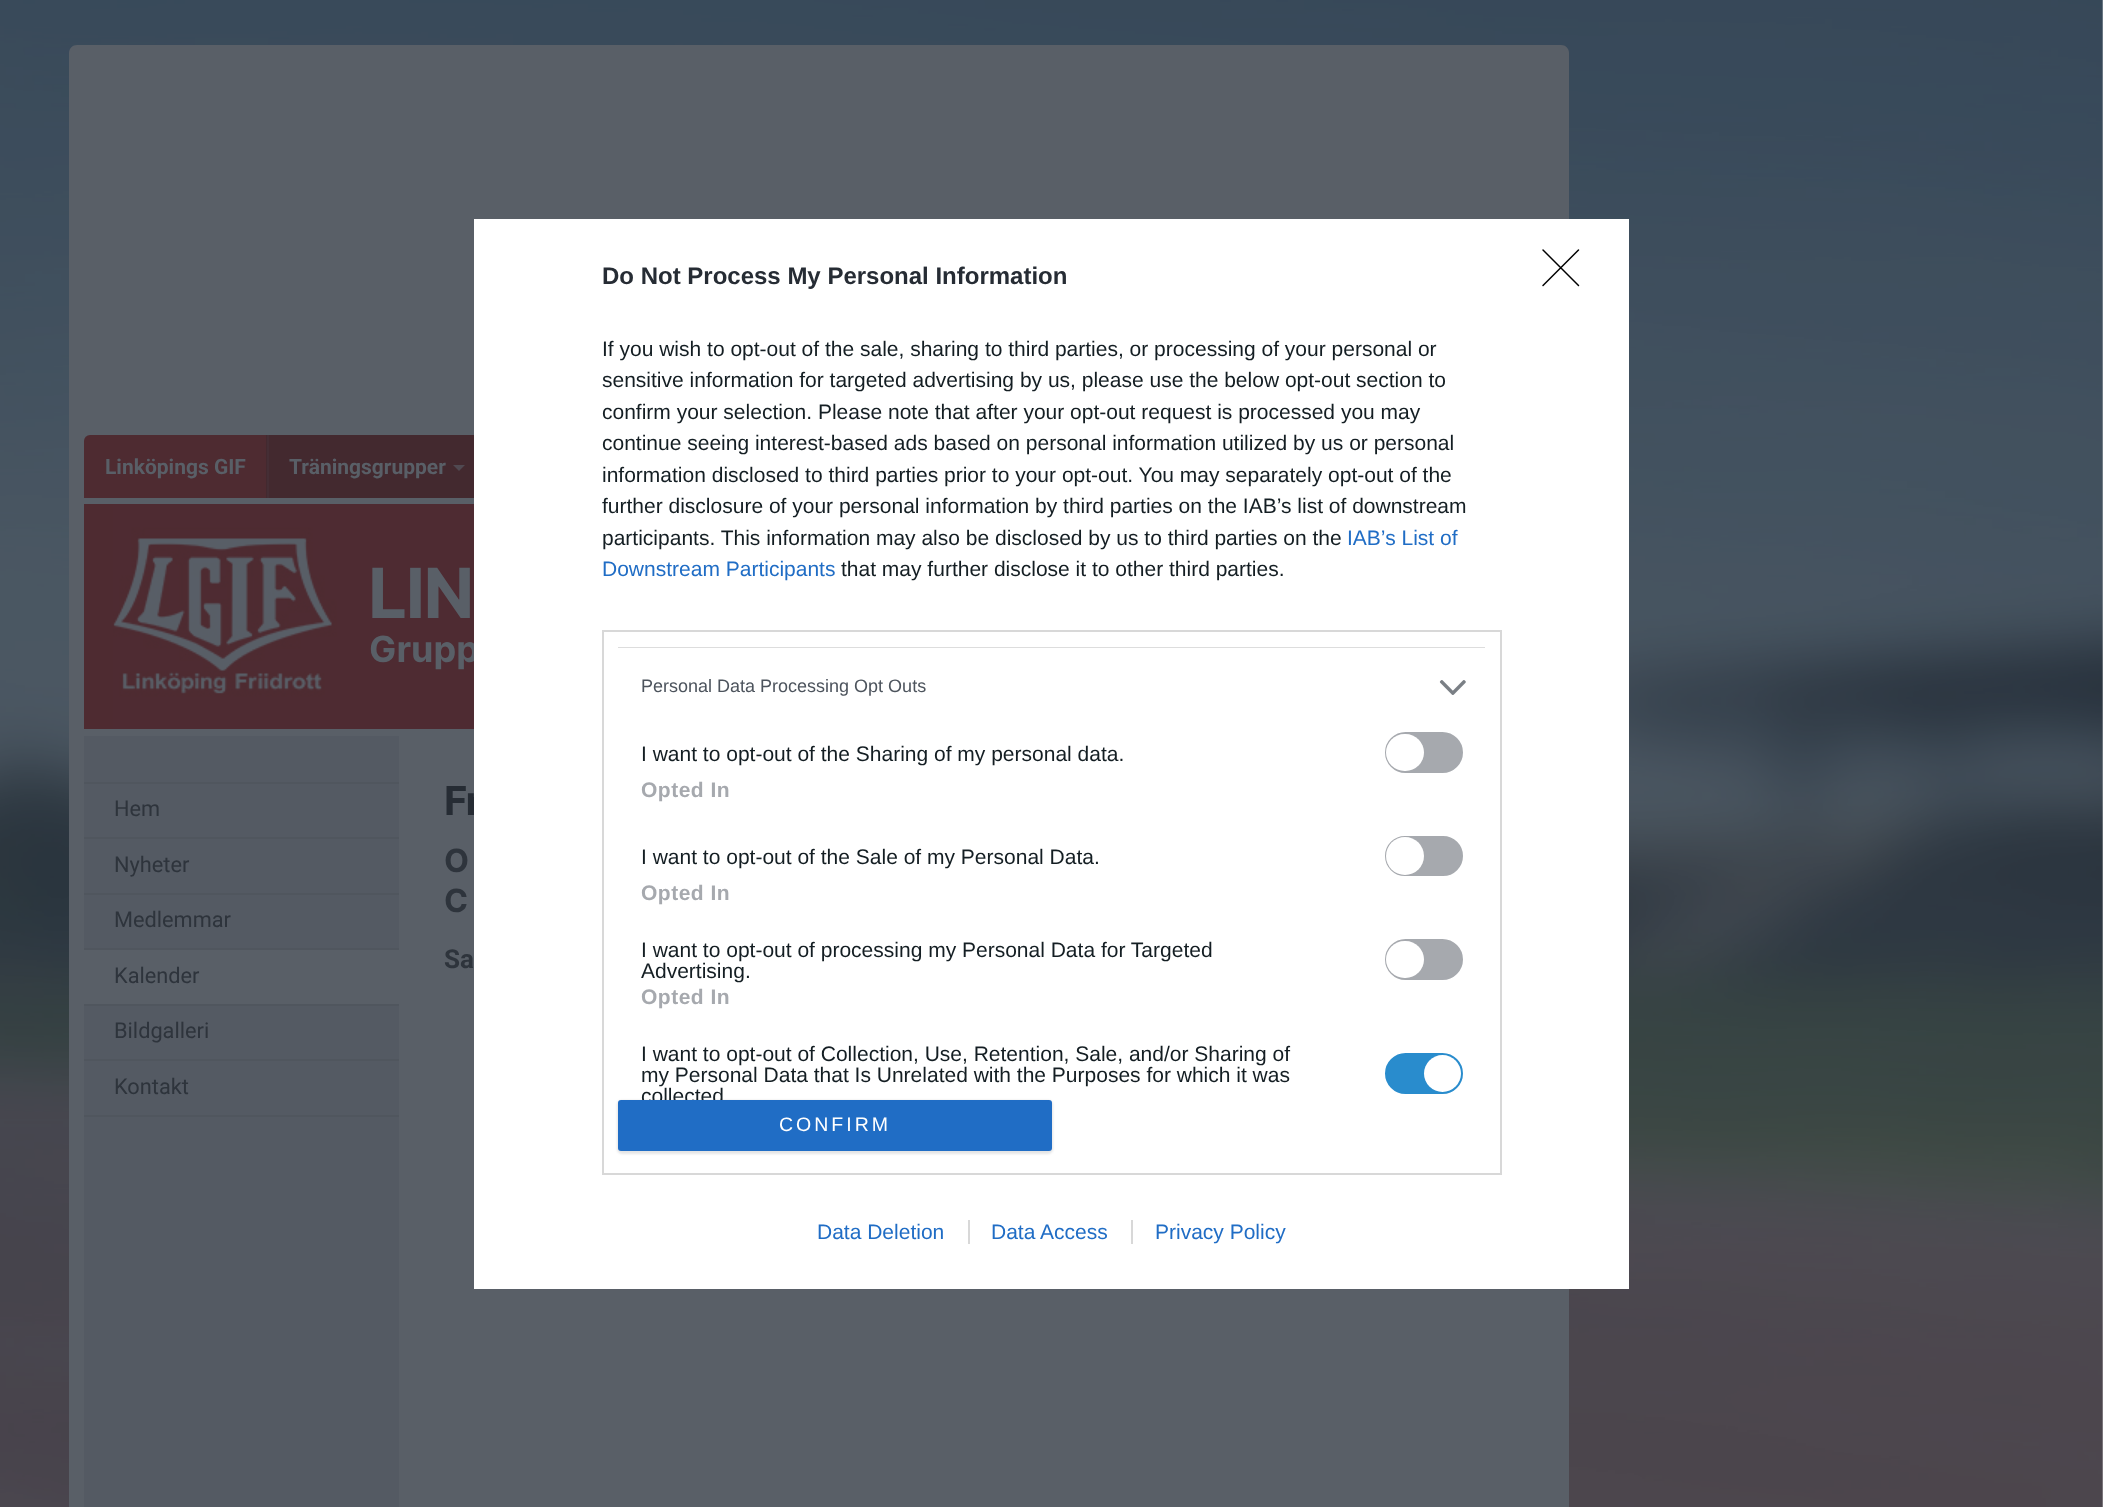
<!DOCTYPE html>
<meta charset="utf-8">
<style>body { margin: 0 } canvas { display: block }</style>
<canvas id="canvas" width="2103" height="1507"></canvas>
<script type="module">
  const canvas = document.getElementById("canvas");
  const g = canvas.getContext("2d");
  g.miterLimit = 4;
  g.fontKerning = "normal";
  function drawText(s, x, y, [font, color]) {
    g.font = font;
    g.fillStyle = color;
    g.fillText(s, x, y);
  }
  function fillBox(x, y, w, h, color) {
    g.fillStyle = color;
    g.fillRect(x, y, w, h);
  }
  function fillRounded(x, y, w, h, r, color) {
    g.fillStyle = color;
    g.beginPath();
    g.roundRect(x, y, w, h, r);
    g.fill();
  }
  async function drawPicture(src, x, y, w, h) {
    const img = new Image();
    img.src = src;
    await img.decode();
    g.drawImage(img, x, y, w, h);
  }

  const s1 = ["bold 21px Roboto", "#595F67"];
  const s2 = ["bold 69px Inter", "#595F67"];
  const s3 = ["bold 36px Inter", "#595F67"];
  const s4 = ["21.75px Roboto", "#2E343C"];
  const s5 = ["bold 40px Inter", "#262C34"];
  const s6 = ["bold 32px Inter", "#2E343C"];
  const s7 = ["bold 26px Roboto", "#2E343C"];
  const s8 = ["bold 24px Liberation Sans", "#262C34"];
  const s9 = ["21px Liberation Sans", "#141E23"];
  const s10 = ["21px Liberation Sans", "#206DC5"];
  const s11 = ["18px Liberation Sans", "#4D545D"];
  const s12 = ["bold 21px Liberation Sans", "#A6A9AE"];
  const s13 = ["19.5px Liberation Sans", "#FFFFFF"];

  fillBox(0, 0, 2103, 1507, "#FFFFFF");
  await drawPicture("pic1.png", 0, 0, 2103, 1507);
  g.fillStyle = "#595F67";
  g.beginPath();
  g.moveTo(77, 45);
  g.lineTo(1561, 45);
  g.bezierCurveTo(1565.5, 45, 1569, 48.5, 1569, 53);
  g.lineTo(1569, 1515);
  g.lineTo(69, 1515);
  g.lineTo(69, 53);
  g.bezierCurveTo(69, 48.5, 72.5, 45, 77, 45);
  g.closePath();
  g.fill();
  g.fillStyle = "#4E2B31";
  g.beginPath();
  g.roundRect(84, 435, 1470, 63, [6, 6, 0, 0]);
  g.fill();
  fillBox(266, 435, 1, 63, "#43292F");
  drawText("Linköpings GIF", 105, 474, s1);
  fillBox(269, 435, 205, 63, "#43292F");
  fillBox(267, 435, 2, 63, "#452E35");
  drawText("Träningsgrupper", 289, 474, s1);
  g.fillStyle = "#504951";
  g.beginPath();
  g.moveTo(453, 465);
  g.lineTo(465, 465);
  g.lineTo(459, 471);
  g.closePath();
  g.fill();
  fillBox(84, 504, 29, 225, "#4E2B31");
  await drawPicture("pic2.png", 113, 504, 361, 225);
  g.letterSpacing = "-1.5px";
  drawText("LIN", 368, 618, s2);
  g.letterSpacing = "0px";
  drawText("Grupp", 369, 662, s3);
  fillBox(84, 736, 315, 771, "#545A63");
  fillBox(84, 782, 315, 2, "#50565E");
  fillBox(84, 837, 315, 2, "#50565E");
  drawText("Hem", 114, 816, s4);
  fillBox(84, 893, 315, 2, "#50565E");
  drawText("Nyheter", 114, 872, s4);
  fillBox(84, 948, 315, 2, "#50565E");
  drawText("Medlemmar", 114, 927, s4);
  fillBox(84, 950, 315, 54, "#595F67");
  fillBox(84, 1004, 315, 2, "#50565E");
  drawText("Kalender", 114, 983, s4);
  fillBox(84, 1059, 315, 2, "#50565E");
  drawText("Bildgalleri", 114, 1038, s4);
  fillBox(84, 1115, 315, 2, "#50565E");
  drawText("Kontakt", 114, 1094, s4);
  g.letterSpacing = "-1.5px";
  drawText("Fr", 444, 815, s5);
  drawText("O", 444, 872, s6);
  drawText("C", 444, 912, s6);
  g.letterSpacing = "0px";
  drawText("Sa", 444, 968, s7);
  fillBox(474, 219, 1155, 1070, "#FFFFFF");
  drawText("Do Not Process My Personal Information", 602, 284, s8);
  drawText("If you wish to opt-out of the sale, sharing to third parties, or processing of your personal or", 602, 356, s9);
  drawText("sensitive information for targeted advertising by us, please use the below opt-out section to", 602, 387, s9);
  drawText("confirm your selection. Please note that after your opt-out request is processed you may", 602, 419, s9);
  drawText("continue seeing interest-based ads based on personal information utilized by us or personal", 602, 450, s9);
  drawText("information disclosed to third parties prior to your opt-out. You may separately opt-out of the", 602, 482, s9);
  drawText("further disclosure of your personal information by third parties on the IAB’s list of downstream", 602, 513, s9);
  drawText("participants. This information may also be disclosed by us to third parties on the", 602, 545, s9);
  drawText("IAB’s List of", 1347, 545, s10);
  drawText("Downstream Participants", 602, 576, s10);
  drawText("that may further disclose it to other third parties.", 841, 576, s9);
  g.strokeStyle = "#D8D8D8";
  g.lineWidth = 2;
  g.strokeRect(603, 631, 898, 543);
  fillBox(618, 647, 867, 1, "#DDDDDD");
  drawText("Personal Data Processing Opt Outs", 641, 692, s11);
  await drawPicture("pic3.png", 1439, 680, 27, 15);
  drawText("I want to opt-out of the Sharing of my personal data.", 641, 761, s9);
  g.fillStyle = "#A6A9AE";
  g.beginPath();
  g.roundRect(1386, 733, 76, 39, 19.5);
  g.fill();
  g.strokeStyle = "#A6A9AE";
  g.stroke();
  fillRounded(1386, 734, 38, 37, 18.5, "#FFFFFF");
  g.letterSpacing = "0.5px";
  drawText("Opted In", 641, 797, s12);
  g.letterSpacing = "0px";
  drawText("I want to opt-out of the Sale of my Personal Data.", 641, 864, s9);
  g.fillStyle = "#A6A9AE";
  g.beginPath();
  g.roundRect(1386, 837, 76, 38, 19);
  g.fill();
  g.stroke();
  g.fillStyle = "#FFFFFF";
  g.beginPath();
  g.arc(1405, 856, 19, 0, Math.PI * 2);
  g.fill();
  g.letterSpacing = "0.5px";
  drawText("Opted In", 641, 900, s12);
  g.letterSpacing = "0px";
  drawText("I want to opt-out of processing my Personal Data for Targeted", 641, 957, s9);
  drawText("Advertising.", 641, 978, s9);
  g.fillStyle = "#A6A9AE";
  g.beginPath();
  g.roundRect(1386, 940, 76, 39, 19.5);
  g.fill();
  g.stroke();
  fillRounded(1386, 941, 38, 37, 18.5, "#FFFFFF");
  g.letterSpacing = "0.5px";
  drawText("Opted In", 641, 1004, s12);
  g.letterSpacing = "0px";
  drawText("I want to opt-out of Collection, Use, Retention, Sale, and/or Sharing of", 641, 1061, s9);
  drawText("my Personal Data that Is Unrelated with the Purposes for which it was", 641, 1082, s9);
  drawText("collected", 641, 1103, s9);
  g.fillStyle = "#298CCD";
  g.beginPath();
  g.roundRect(1386, 1054, 76, 39, 19.5);
  g.fill();
  g.strokeStyle = "#298CCD";
  g.stroke();
  g.fillStyle = "#FFFFFF";
  g.beginPath();
  g.arc(1442.5, 1073.5, 18.5, 0, Math.PI * 2);
  g.fill();
  g.fillStyle = "rgba(0, 0, 0, 0.1)";
  g.filter = "blur(1px)";
  g.beginPath();
  g.roundRect(617, 1100, 436, 54, 5);
  g.fill();
  g.filter = "none";
  fillRounded(618, 1100, 434, 51, 3, "#206DC5");
  g.letterSpacing = "3px";
  drawText("CONFIRM", 779, 1131, s13);
  g.beginPath();
  g.moveTo(1543, 250);
  g.lineTo(1578.5, 285.5);
  g.moveTo(1578.5, 250);
  g.lineTo(1543, 285.5);
  g.strokeStyle = "#000000";
  g.lineWidth = 1.5;
  g.lineCap = "round";
  g.lineJoin = "round";
  g.stroke();
  g.letterSpacing = "0px";
  drawText("Data Deletion", 817, 1239, s10);
  drawText("Data Access", 991, 1239, s10);
  fillBox(968, 1220, 2, 24, "#D8D8D8");
  drawText("Privacy Policy", 1155, 1239, s10);
  fillBox(1131, 1220, 2, 24, "#D8D8D8");
</script>
